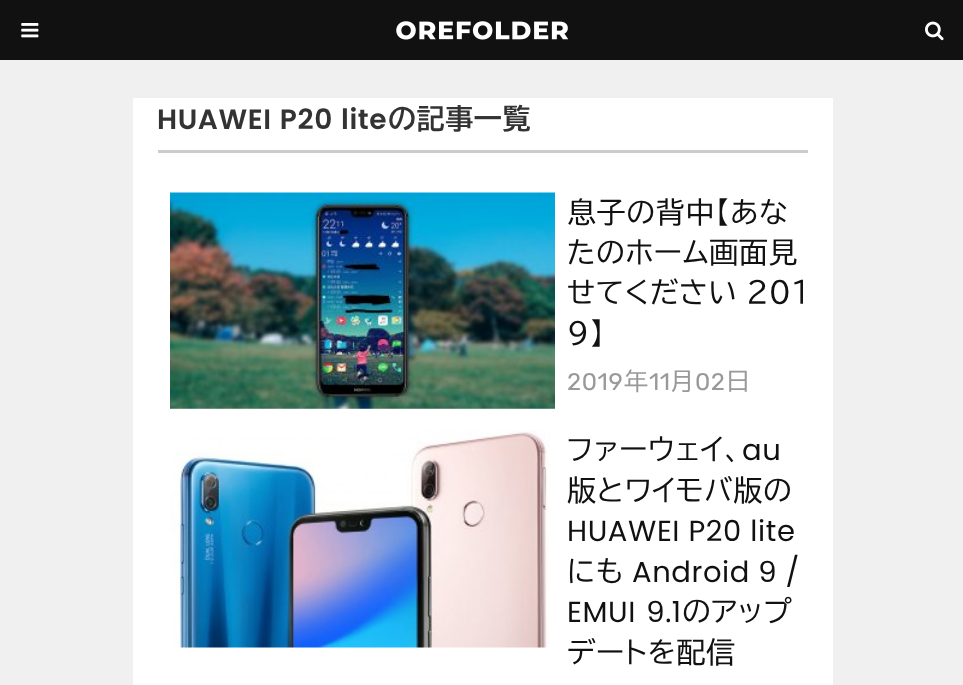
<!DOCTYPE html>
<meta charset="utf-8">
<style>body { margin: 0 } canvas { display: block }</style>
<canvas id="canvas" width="963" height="685"></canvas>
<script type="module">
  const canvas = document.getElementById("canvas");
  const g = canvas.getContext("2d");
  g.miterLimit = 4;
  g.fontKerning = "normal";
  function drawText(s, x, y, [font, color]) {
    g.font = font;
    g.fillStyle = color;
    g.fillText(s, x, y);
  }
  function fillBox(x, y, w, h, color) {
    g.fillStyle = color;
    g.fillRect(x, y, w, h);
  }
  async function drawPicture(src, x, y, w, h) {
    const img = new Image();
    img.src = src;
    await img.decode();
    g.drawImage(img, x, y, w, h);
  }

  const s1 = ["600 28px Poppins", "#333333"];
  const s2 = ["bold 28px BIZ UDPGothic", "#333333"];
  const s3 = ["29px BIZ UDPGothic", "#111111"];
  const s4 = ["24px Rubik", "#999999"];
  const s5 = ["24px BIZ UDPGothic", "#999999"];
  const s6 = ["29px Poppins", "#111111"];

  fillBox(0, 0, 963, 685, "#F0F0F0");
  fillBox(0, 0, 963, 60, "#111111");
  await drawPicture("pic1.png", 21, 23, 18, 15);
  await drawPicture("pic2.png", 396, 21, 172, 19);
  await drawPicture("pic3.png", 925, 21, 19, 20);
  fillBox(133, 98, 700, 587, "#FFFFFF");
  fillBox(158, 150, 650, 3, "#CCCCCC");
  g.letterSpacing = "0.6px";
  g.wordSpacing = "1px";
  drawText("HUAWEI P20 lite", 157, 129, s1);
  g.wordSpacing = "0px";
  drawText("の記事一覧", 388, 129, s2);
  await drawPicture("pic4.png", 170, 192, 385, 217);
  drawText("息子の背中【あな", 567, 223, s3);
  drawText("たのホーム画面見", 567, 263, s3);
  g.wordSpacing = "-2px";
  drawText("せてください 201", 567, 303, s3);
  g.wordSpacing = "0px";
  drawText("9】", 567, 344, s3);
  drawText("2019", 567, 390, s4);
  drawText("年", 624, 390, s5);
  drawText("11", 649, 390, s4);
  drawText("月", 670, 390, s5);
  drawText("02", 695, 390, s4);
  drawText("日", 726, 390, s5);
  await drawPicture("pic5.png", 170, 430, 380, 218);
  drawText("ファーウェイ、", 567, 460, s3);
  drawText("au", 742, 460, s6);
  drawText("版とワイモバ版の", 567, 501, s3);
  drawText("HUAWEI P20 lite", 567, 541, s6);
  drawText("にも", 567, 582, s3);
  drawText("Android 9 /", 632, 582, s6);
  g.wordSpacing = "2px";
  drawText("EMUI 9.1", 567, 622, s6);
  g.wordSpacing = "0px";
  drawText("のアップ", 682, 622, s3);
  drawText("デートを配信", 567, 663, s3);
</script>
